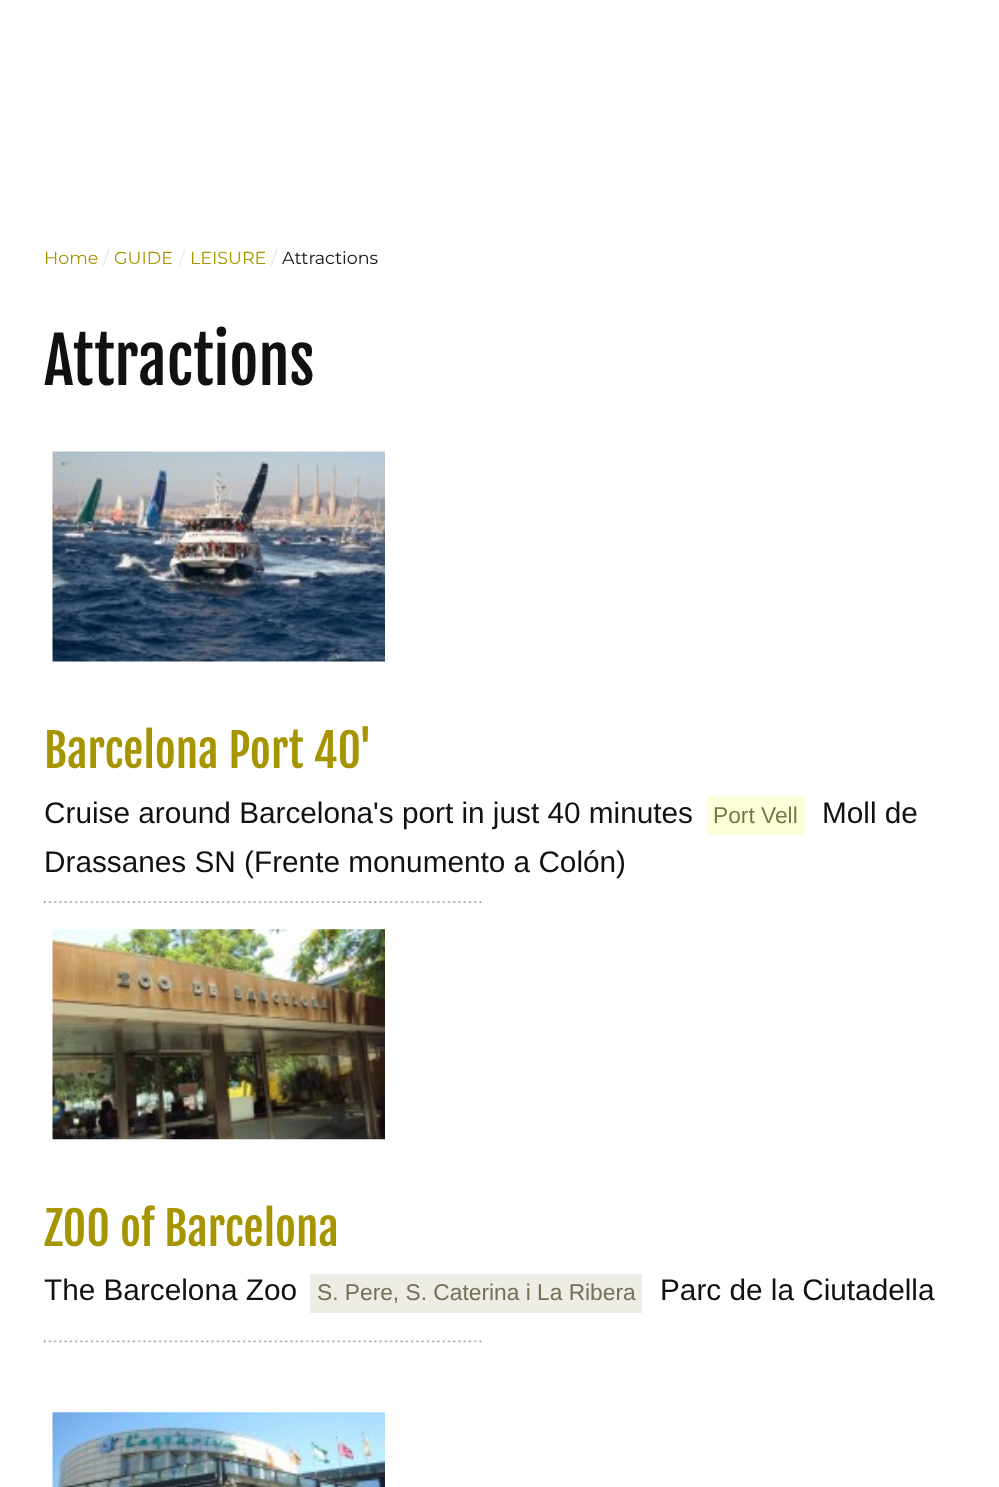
<!DOCTYPE html>
<meta charset="utf-8">
<style>body { margin: 0 } canvas { display: block }</style>
<canvas id="canvas" width="999" height="1487"></canvas>
<script type="module">
  const canvas = document.getElementById("canvas");
  const g = canvas.getContext("2d");
  g.miterLimit = 4;
  g.fontKerning = "normal";
  function drawText(s, x, y, [font, color]) {
    g.font = font;
    g.fillStyle = color;
    g.fillText(s, x, y);
  }
  function fillBox(x, y, w, h, color) {
    g.fillStyle = color;
    g.fillRect(x, y, w, h);
  }
  async function drawPicture(src, x, y, w, h) {
    const img = new Image();
    img.src = src;
    await img.decode();
    g.drawImage(img, x, y, w, h);
  }

  const s1 = ["100 17.5px Montserrat", "#A69400"];
  const s2 = ["100 17.5px Montserrat", "#E6E6E6"];
  const s3 = ["100 17.5px Montserrat", "#111111"];
  const s4 = ["63px Fjalla One", "#111111"];
  const s5 = ["45.5px Fjalla One", "#A69400"];
  const s6 = ["29.75px Liberation Sans", "#111111"];
  const s7 = ["22.75px Liberation Sans", "#767946"];
  const s8 = ["22.75px Liberation Sans", "#747158"];

  fillBox(0, 0, 999, 1487, "#FFFFFF");
  drawText("Home", 44, 264, s1);
  drawText("/", 103, 264, s2);
  drawText("GUIDE", 114, 264, s1);
  drawText("/", 179, 264, s2);
  drawText("LEISURE", 190, 264, s1);
  drawText("/", 271, 264, s2);
  drawText("Attractions", 282, 264, s3);
  drawText("Attractions", 44, 385, s4);
  await drawPicture("pic1.png", 52, 451, 333, 211);
  drawText("Barcelona Port 40'", 44, 768, s5);
  drawText("Cruise around Barcelona's port in just 40 minutes", 44, 823, s6);
  fillBox(707, 796, 98, 39, "#FDFFDA");
  drawText("Port Vell", 713, 823, s7);
  drawText("Moll de", 822, 823, s6);
  drawText("Drassanes SN (Frente monumento a Colón)", 44, 872, s6);
  await drawPicture("pic2.png", 43, 901, 439, 2);
  await drawPicture("pic3.png", 52, 929, 333, 211);
  drawText("ZOO of Barcelona", 44, 1246, s5);
  drawText("The Barcelona Zoo", 44, 1300, s6);
  fillBox(310, 1274, 332, 39, "#EDECE5");
  drawText("S. Pere, S. Caterina i La Ribera", 317, 1300, s8);
  drawText("Parc de la Ciutadella", 660, 1300, s6);
  await drawPicture("pic4.png", 43, 1340, 439, 3);
  await drawPicture("pic5.png", 52, 1412, 333, 75);
</script>
